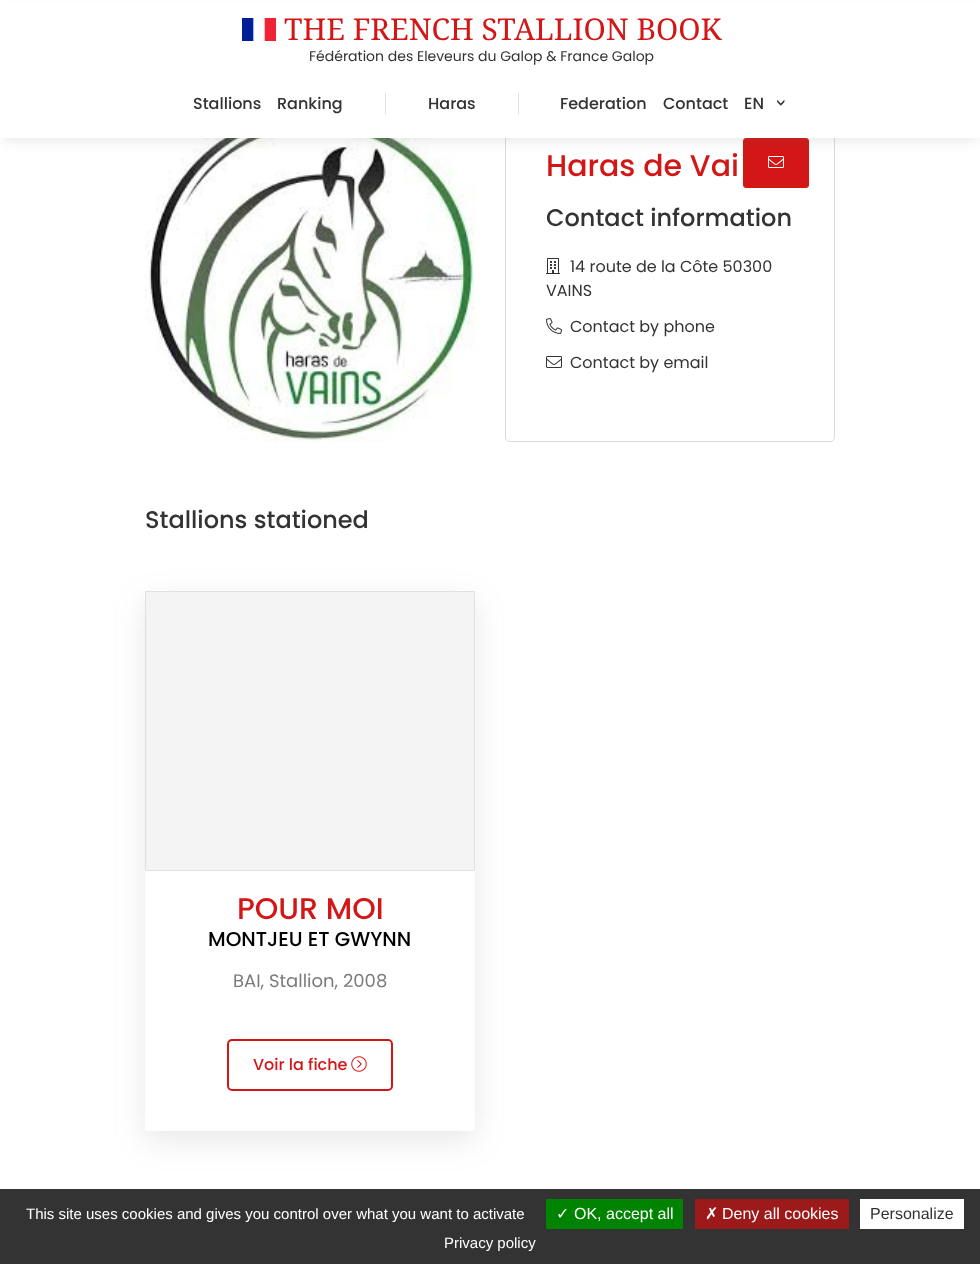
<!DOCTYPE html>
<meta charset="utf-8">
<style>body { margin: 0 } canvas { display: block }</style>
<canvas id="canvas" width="980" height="1264"></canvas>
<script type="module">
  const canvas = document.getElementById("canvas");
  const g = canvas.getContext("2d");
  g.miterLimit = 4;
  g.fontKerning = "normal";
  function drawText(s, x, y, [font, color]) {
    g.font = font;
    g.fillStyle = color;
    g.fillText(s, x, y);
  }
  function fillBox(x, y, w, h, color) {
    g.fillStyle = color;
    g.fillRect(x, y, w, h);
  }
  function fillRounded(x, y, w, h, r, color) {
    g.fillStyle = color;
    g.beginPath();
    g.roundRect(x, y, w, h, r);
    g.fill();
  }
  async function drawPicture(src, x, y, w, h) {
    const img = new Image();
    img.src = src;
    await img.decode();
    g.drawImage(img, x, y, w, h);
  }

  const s1 = ["30px Droid Serif", "#D31717"];
  const s2 = ["14px Poppins", "#333333"];
  const s3 = ["500 16px Poppins", "#333333"];
  const s4 = ["100 25px Poppins", "#CBCBCB"];
  const s5 = ["500 30px Poppins", "#D31717"];
  const s6 = ["500 24px Poppins", "#333333"];
  const s7 = ["16px Poppins", "#333333"];
  const s8 = ["500 20px Poppins", "#000000"];
  const s9 = ["18px Poppins", "#7B7B7B"];
  const s10 = ["500 16px Poppins", "#D31717"];
  const s11 = ["15px Liberation Sans", "#FFFFFF"];
  const s12 = ["16px DejaVu Sans", "#FFFFFF"];
  const s13 = ["16px Liberation Sans", "#FFFFFF"];
  const s14 = ["16px Liberation Sans", "#333333"];

  fillBox(0, 0, 980, 1264, "#FFFFFF");
  await drawPicture("pic2.png", 145, 138, 330, 304);
  g.beginPath();
  g.roundRect(505.5, 112.5, 329, 329, 4.5);
  g.strokeStyle = "#DBDBDB";
  g.stroke();
  g.fillStyle = "#D31717";
  g.beginPath();
  g.roundRect(743.5, 138.5, 65, 49, 2.5);
  g.fill();
  g.strokeStyle = "#D31717";
  g.stroke();
  await drawPicture("pic3.png", 768, 156, 16, 12);
  g.fillStyle = "rgba(104, 104, 104, 0.15)";
  g.filter = "blur(6px)";
  g.beginPath();
  g.rect(3, 9, 974, 132);
  g.fill();
  g.filter = "none";
  fillBox(0, 2, 980, 136, "#FFFFFF");
  await drawPicture("pic1.png", 242, 18, 34, 23);
  drawText("THE FRENCH STALLION BOOK", 284, 40, s1);
  drawText("Fédération des Eleveurs du Galop & France Galop", 309, 61, s2);
  drawText("Stallions", 193, 109, s3);
  drawText("Ranking", 277, 109, s3);
  drawText("|", 383, 112, s4);
  drawText("Haras", 428, 109, s3);
  drawText("|", 516, 112, s4);
  drawText("Federation", 560, 109, s3);
  drawText("Contact", 663, 109, s3);
  drawText("EN", 744, 109, s3);
  g.save();
  g.translate(775, 98);
  g.rotate(90 * Math.PI / 180);
  g.fillText(">", 0, 0);
  g.restore();
  drawText("Haras de Vai", 546, 176, s5);
  drawText("Contact information", 546, 226, s6);
  await drawPicture("pic4.png", 546, 258, 14, 16);
  drawText("14 route de la Côte 50300", 570, 272, s7);
  drawText("VAINS", 546, 296, s7);
  await drawPicture("pic5.png", 546, 318, 16, 16);
  drawText("Contact by phone", 570, 332, s7);
  await drawPicture("pic6.png", 546, 356, 16, 12);
  drawText("Contact by email", 570, 368, s7);
  drawText("Stallions stationed", 145, 528, s6);
  g.fillStyle = "rgba(104, 104, 104, 0.15)";
  g.filter = "blur(15px)";
  g.beginPath();
  g.roundRect(145, 601, 330, 540, 4);
  g.fill();
  g.filter = "none";
  fillRounded(145, 591, 330, 540, 4, "#FFFFFF");
  g.fillStyle = "#F4F4F4";
  g.beginPath();
  g.rect(145.5, 591.5, 329, 279);
  g.fill();
  g.strokeStyle = "#E1E0E0";
  g.stroke();
  drawText("POUR MOI", 237, 919, s5);
  drawText("MONTJEU ET GWYNN", 208, 946, s8);
  drawText("BAI, Stallion, 2008", 233, 987, s9);
  g.fillStyle = "#FFFFFF";
  g.beginPath();
  g.roundRect(145, 1014, 330, 117, [0, 0, 3, 3]);
  g.fill();
  g.beginPath();
  g.roundRect(228, 1040, 164, 50, 4);
  g.strokeStyle = "#D31717";
  g.lineWidth = 2;
  g.stroke();
  drawText("Voir la fiche", 253, 1070, s10);
  await drawPicture("pic7.png", 351, 1056, 16, 16);
  fillBox(0, 1189, 980, 75, "#333333");
  drawText("This site uses cookies and gives you control over what you want to activate", 26, 1219, s11);
  fillBox(546, 1199, 137, 30, "#008300");
  drawText("✓", 556, 1219, s12);
  drawText("OK, accept all", 574, 1219, s13);
  fillBox(695, 1199, 154, 30, "#9C1A1A");
  drawText("✗", 705, 1219, s12);
  drawText("Deny all cookies", 722, 1219, s13);
  fillBox(860, 1199, 104, 30, "#FFFFFF");
  drawText("Personalize", 870, 1219, s14);
  drawText("Privacy policy", 444, 1248, s11);
</script>
